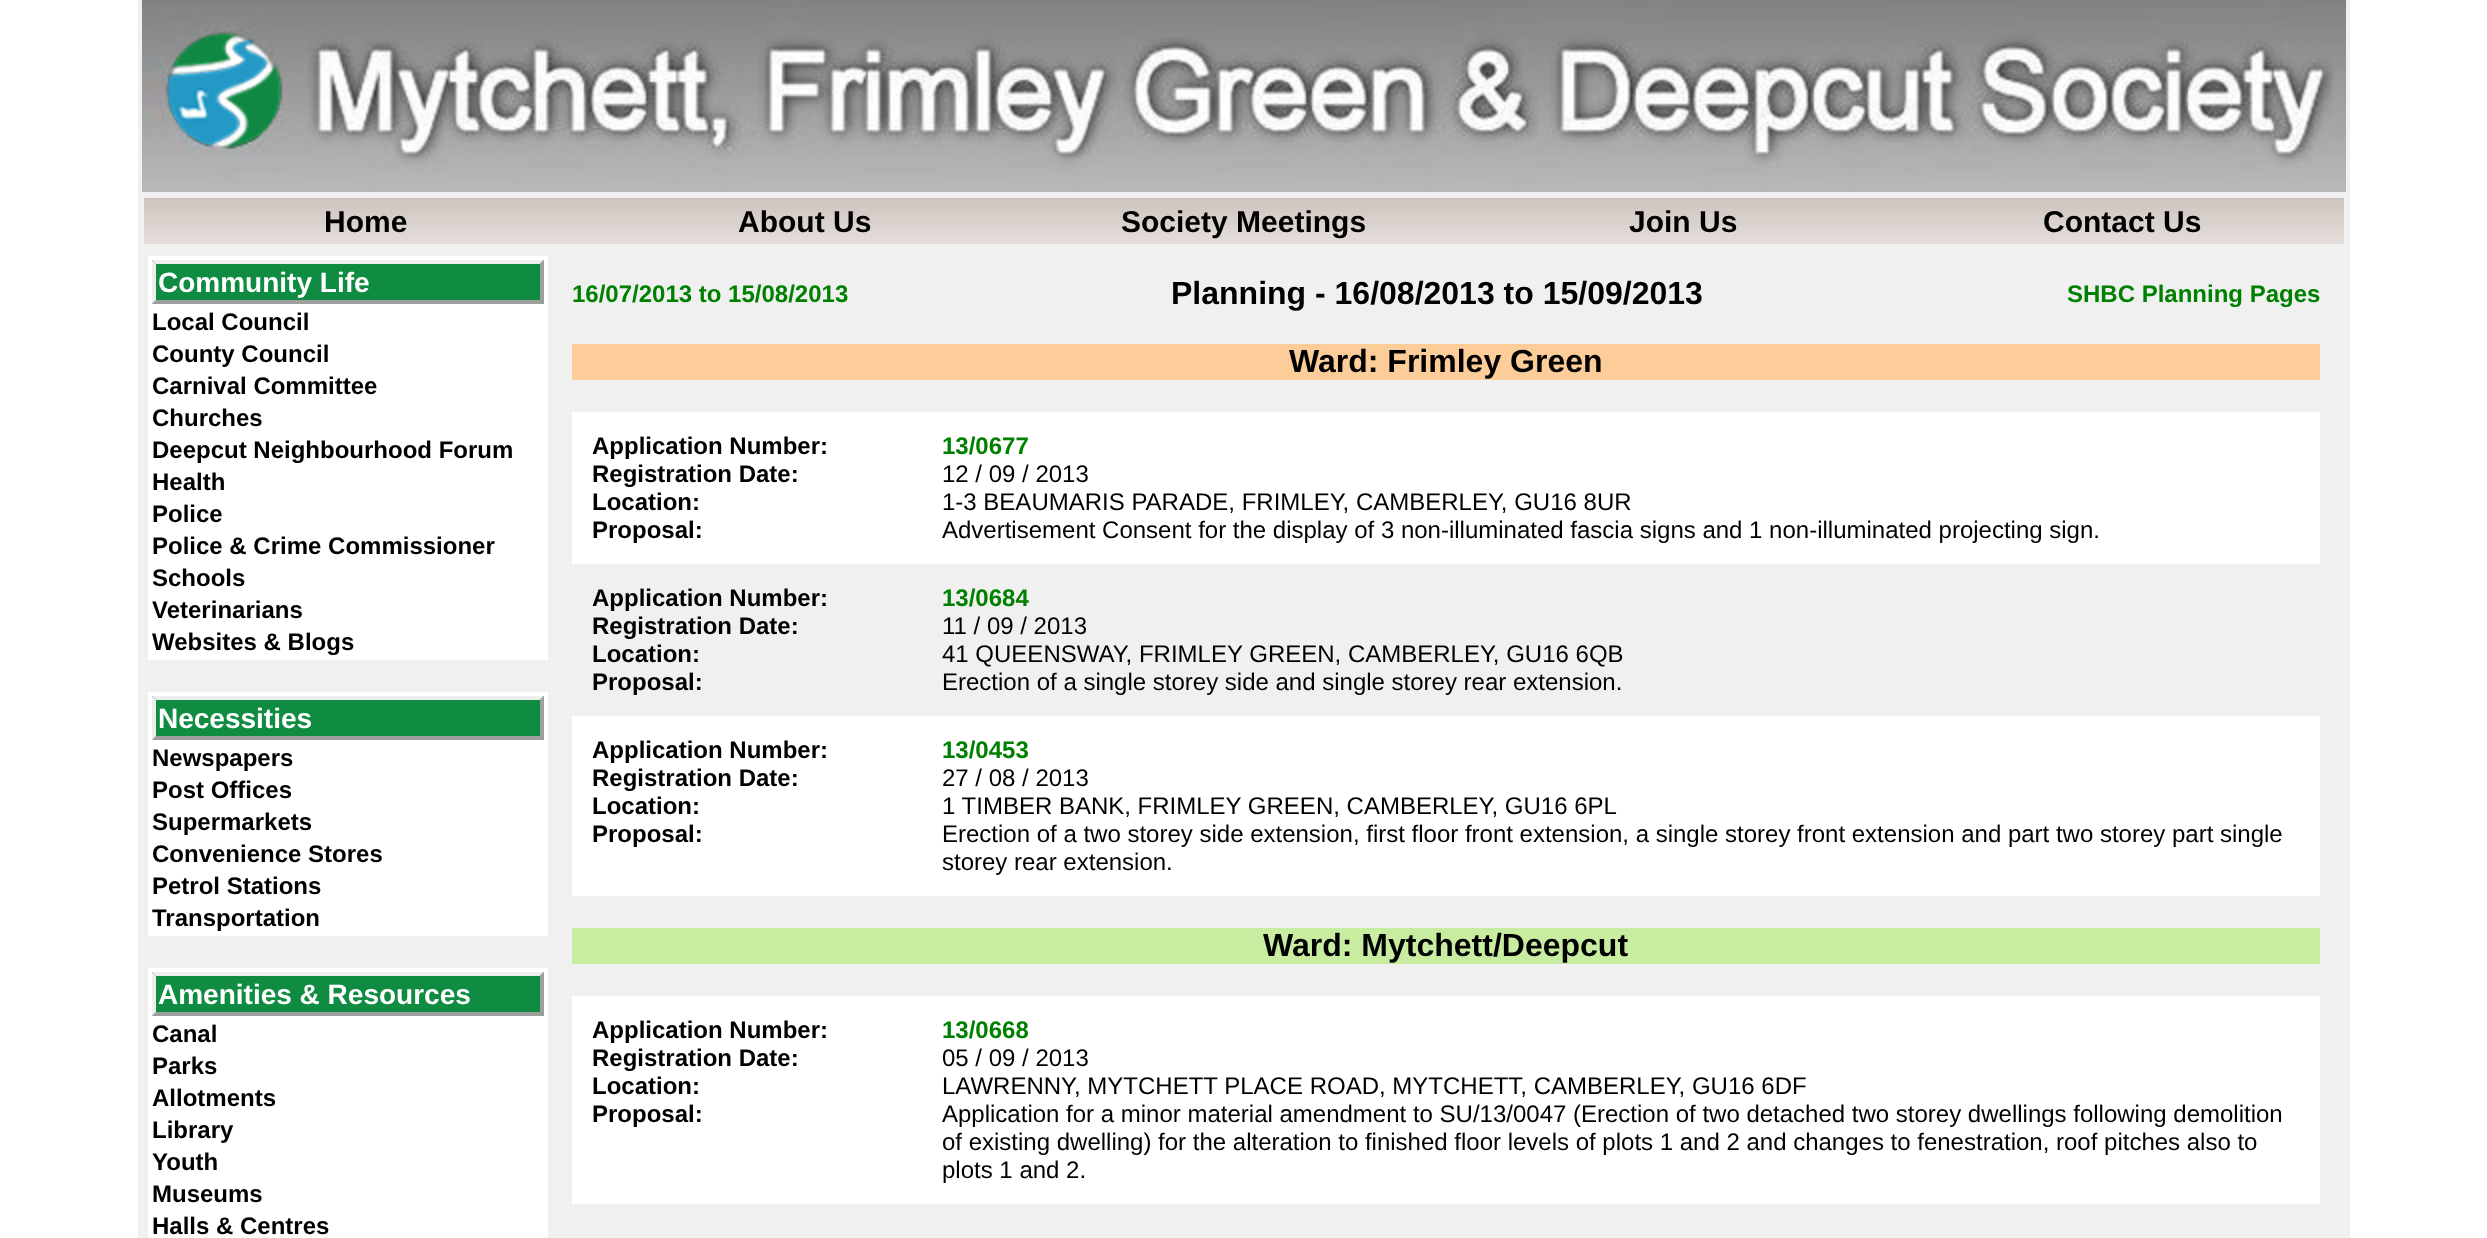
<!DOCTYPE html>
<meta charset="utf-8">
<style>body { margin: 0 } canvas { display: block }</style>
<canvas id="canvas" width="2487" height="1238"></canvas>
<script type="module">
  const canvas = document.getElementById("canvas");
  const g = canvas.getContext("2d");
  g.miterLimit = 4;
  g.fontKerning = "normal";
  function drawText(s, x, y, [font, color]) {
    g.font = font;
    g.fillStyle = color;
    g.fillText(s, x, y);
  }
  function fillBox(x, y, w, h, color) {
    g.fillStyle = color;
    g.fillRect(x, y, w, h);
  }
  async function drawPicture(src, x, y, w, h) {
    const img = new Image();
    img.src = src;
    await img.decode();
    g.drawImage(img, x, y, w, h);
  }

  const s1 = ["bold 30px Liberation Sans", "#000000"];
  const s2 = ["bold 28px Liberation Sans", "#FFFFFF"];
  const s3 = ["bold 24px Liberation Sans", "#000000"];
  const s4 = ["bold 24px Liberation Sans", "#008000"];
  const s5 = ["bold 32px Liberation Sans", "#000000"];
  const s6 = ["24px Liberation Sans", "#000000"];

  fillBox(0, 0, 2487, 1238, "#FFFFFF");
  fillBox(138, 0, 2212, 1238, "#F0F0F0");
  await drawPicture("pic1.png", 142, 0, 2204, 192);
  await drawPicture("pic2.png", 165, 31, 118, 119);
  await drawPicture("pic3.png", 144, 198, 2200, 46);
  drawText("Home", 324, 232, s1);
  drawText("About Us", 738, 232, s1);
  drawText("Society Meetings", 1121, 232, s1);
  drawText("Join Us", 1629, 232, s1);
  drawText("Contact Us", 2043, 232, s1);
  fillBox(148, 256, 400, 404, "#FFFFFF");
  fillBox(152, 260, 392, 44, "#108C42");
  g.fillStyle = "#EEEEEE";
  g.beginPath();
  g.moveTo(152, 260);
  g.lineTo(544, 260);
  g.lineTo(540, 264);
  g.lineTo(156, 264);
  g.closePath();
  g.fill();
  g.fillStyle = "#9F9F9F";
  g.beginPath();
  g.moveTo(544, 260);
  g.lineTo(544, 304);
  g.lineTo(540, 300);
  g.lineTo(540, 264);
  g.closePath();
  g.fill();
  g.beginPath();
  g.moveTo(544, 304);
  g.lineTo(152, 304);
  g.lineTo(156, 300);
  g.lineTo(540, 300);
  g.closePath();
  g.fill();
  g.fillStyle = "#EEEEEE";
  g.beginPath();
  g.moveTo(152, 304);
  g.lineTo(152, 260);
  g.lineTo(156, 264);
  g.lineTo(156, 300);
  g.closePath();
  g.fill();
  drawText("Community Life", 158, 292, s2);
  drawText("Local Council", 152, 330, s3);
  drawText("County Council", 152, 362, s3);
  drawText("Carnival Committee", 152, 394, s3);
  drawText("Churches", 152, 426, s3);
  drawText("Deepcut Neighbourhood Forum", 152, 458, s3);
  drawText("Health", 152, 490, s3);
  drawText("Police", 152, 522, s3);
  drawText("Police & Crime Commissioner", 152, 554, s3);
  drawText("Schools", 152, 586, s3);
  drawText("Veterinarians", 152, 618, s3);
  drawText("Websites & Blogs", 152, 650, s3);
  fillBox(148, 692, 400, 244, "#FFFFFF");
  fillBox(152, 696, 392, 44, "#108C42");
  g.fillStyle = "#EEEEEE";
  g.beginPath();
  g.moveTo(152, 696);
  g.lineTo(544, 696);
  g.lineTo(540, 700);
  g.lineTo(156, 700);
  g.closePath();
  g.fill();
  g.fillStyle = "#9F9F9F";
  g.beginPath();
  g.moveTo(544, 696);
  g.lineTo(544, 740);
  g.lineTo(540, 736);
  g.lineTo(540, 700);
  g.closePath();
  g.fill();
  g.beginPath();
  g.moveTo(544, 740);
  g.lineTo(152, 740);
  g.lineTo(156, 736);
  g.lineTo(540, 736);
  g.closePath();
  g.fill();
  g.fillStyle = "#EEEEEE";
  g.beginPath();
  g.moveTo(152, 740);
  g.lineTo(152, 696);
  g.lineTo(156, 700);
  g.lineTo(156, 736);
  g.closePath();
  g.fill();
  drawText("Necessities", 158, 728, s2);
  drawText("Newspapers", 152, 766, s3);
  drawText("Post Offices", 152, 798, s3);
  drawText("Supermarkets", 152, 830, s3);
  drawText("Convenience Stores", 152, 862, s3);
  drawText("Petrol Stations", 152, 894, s3);
  drawText("Transportation", 152, 926, s3);
  fillBox(148, 968, 400, 270, "#FFFFFF");
  fillBox(152, 972, 392, 44, "#108C42");
  g.fillStyle = "#EEEEEE";
  g.beginPath();
  g.moveTo(152, 972);
  g.lineTo(544, 972);
  g.lineTo(540, 976);
  g.lineTo(156, 976);
  g.closePath();
  g.fill();
  g.fillStyle = "#9F9F9F";
  g.beginPath();
  g.moveTo(544, 972);
  g.lineTo(544, 1016);
  g.lineTo(540, 1012);
  g.lineTo(540, 976);
  g.closePath();
  g.fill();
  g.beginPath();
  g.moveTo(544, 1016);
  g.lineTo(152, 1016);
  g.lineTo(156, 1012);
  g.lineTo(540, 1012);
  g.closePath();
  g.fill();
  g.fillStyle = "#EEEEEE";
  g.beginPath();
  g.moveTo(152, 1016);
  g.lineTo(152, 972);
  g.lineTo(156, 976);
  g.lineTo(156, 1012);
  g.closePath();
  g.fill();
  drawText("Amenities & Resources", 158, 1004, s2);
  drawText("Canal", 152, 1042, s3);
  drawText("Parks", 152, 1074, s3);
  drawText("Allotments", 152, 1106, s3);
  drawText("Library", 152, 1138, s3);
  drawText("Youth", 152, 1170, s3);
  drawText("Museums", 152, 1202, s3);
  drawText("Halls & Centres", 152, 1234, s3);
  drawText("16/07/2013 to 15/08/2013", 572, 302, s4);
  drawText("Planning - 16/08/2013 to 15/09/2013", 1171, 304, s5);
  drawText("SHBC Planning Pages", 2067, 302, s4);
  fillBox(572, 344, 1748, 36, "#FCCD98");
  drawText("Ward: Frimley Green", 1289, 372, s5);
  fillBox(572, 412, 1748, 152, "#FFFFFF");
  drawText("Application Number:", 592, 454, s3);
  drawText("Registration Date:", 592, 482, s3);
  drawText("Location:", 592, 510, s3);
  drawText("Proposal:", 592, 538, s3);
  drawText("13/0677", 942, 454, s4);
  drawText("12 / 09 / 2013", 942, 482, s6);
  drawText("1-3 BEAUMARIS PARADE, FRIMLEY, CAMBERLEY, GU16 8UR", 942, 510, s6);
  drawText("Advertisement Consent for the display of 3 non-illuminated fascia signs and 1 non-illuminated projecting sign.", 942, 538, s6);
  drawText("Application Number:", 592, 606, s3);
  drawText("Registration Date:", 592, 634, s3);
  drawText("Location:", 592, 662, s3);
  drawText("Proposal:", 592, 690, s3);
  drawText("13/0684", 942, 606, s4);
  drawText("11 / 09 / 2013", 942, 634, s6);
  drawText("41 QUEENSWAY, FRIMLEY GREEN, CAMBERLEY, GU16 6QB", 942, 662, s6);
  drawText("Erection of a single storey side and single storey rear extension.", 942, 690, s6);
  fillBox(572, 716, 1748, 180, "#FFFFFF");
  drawText("Application Number:", 592, 758, s3);
  drawText("Registration Date:", 592, 786, s3);
  drawText("Location:", 592, 814, s3);
  drawText("Proposal:", 592, 842, s3);
  drawText("13/0453", 942, 758, s4);
  drawText("27 / 08 / 2013", 942, 786, s6);
  drawText("1 TIMBER BANK, FRIMLEY GREEN, CAMBERLEY, GU16 6PL", 942, 814, s6);
  drawText("Erection of a two storey side extension, first floor front extension, a single storey front extension and part two storey part single", 942, 842, s6);
  drawText("storey rear extension.", 942, 870, s6);
  fillBox(572, 928, 1748, 36, "#C8EDA0");
  drawText("Ward: Mytchett/Deepcut", 1263, 956, s5);
  fillBox(572, 996, 1748, 208, "#FFFFFF");
  drawText("Application Number:", 592, 1038, s3);
  drawText("Registration Date:", 592, 1066, s3);
  drawText("Location:", 592, 1094, s3);
  drawText("Proposal:", 592, 1122, s3);
  drawText("13/0668", 942, 1038, s4);
  drawText("05 / 09 / 2013", 942, 1066, s6);
  drawText("LAWRENNY, MYTCHETT PLACE ROAD, MYTCHETT, CAMBERLEY, GU16 6DF", 942, 1094, s6);
  drawText("Application for a minor material amendment to SU/13/0047 (Erection of two detached two storey dwellings following demolition", 942, 1122, s6);
  drawText("of existing dwelling) for the alteration to finished floor levels of plots 1 and 2 and changes to fenestration, roof pitches also to", 942, 1150, s6);
  drawText("plots 1 and 2.", 942, 1178, s6);
</script>
